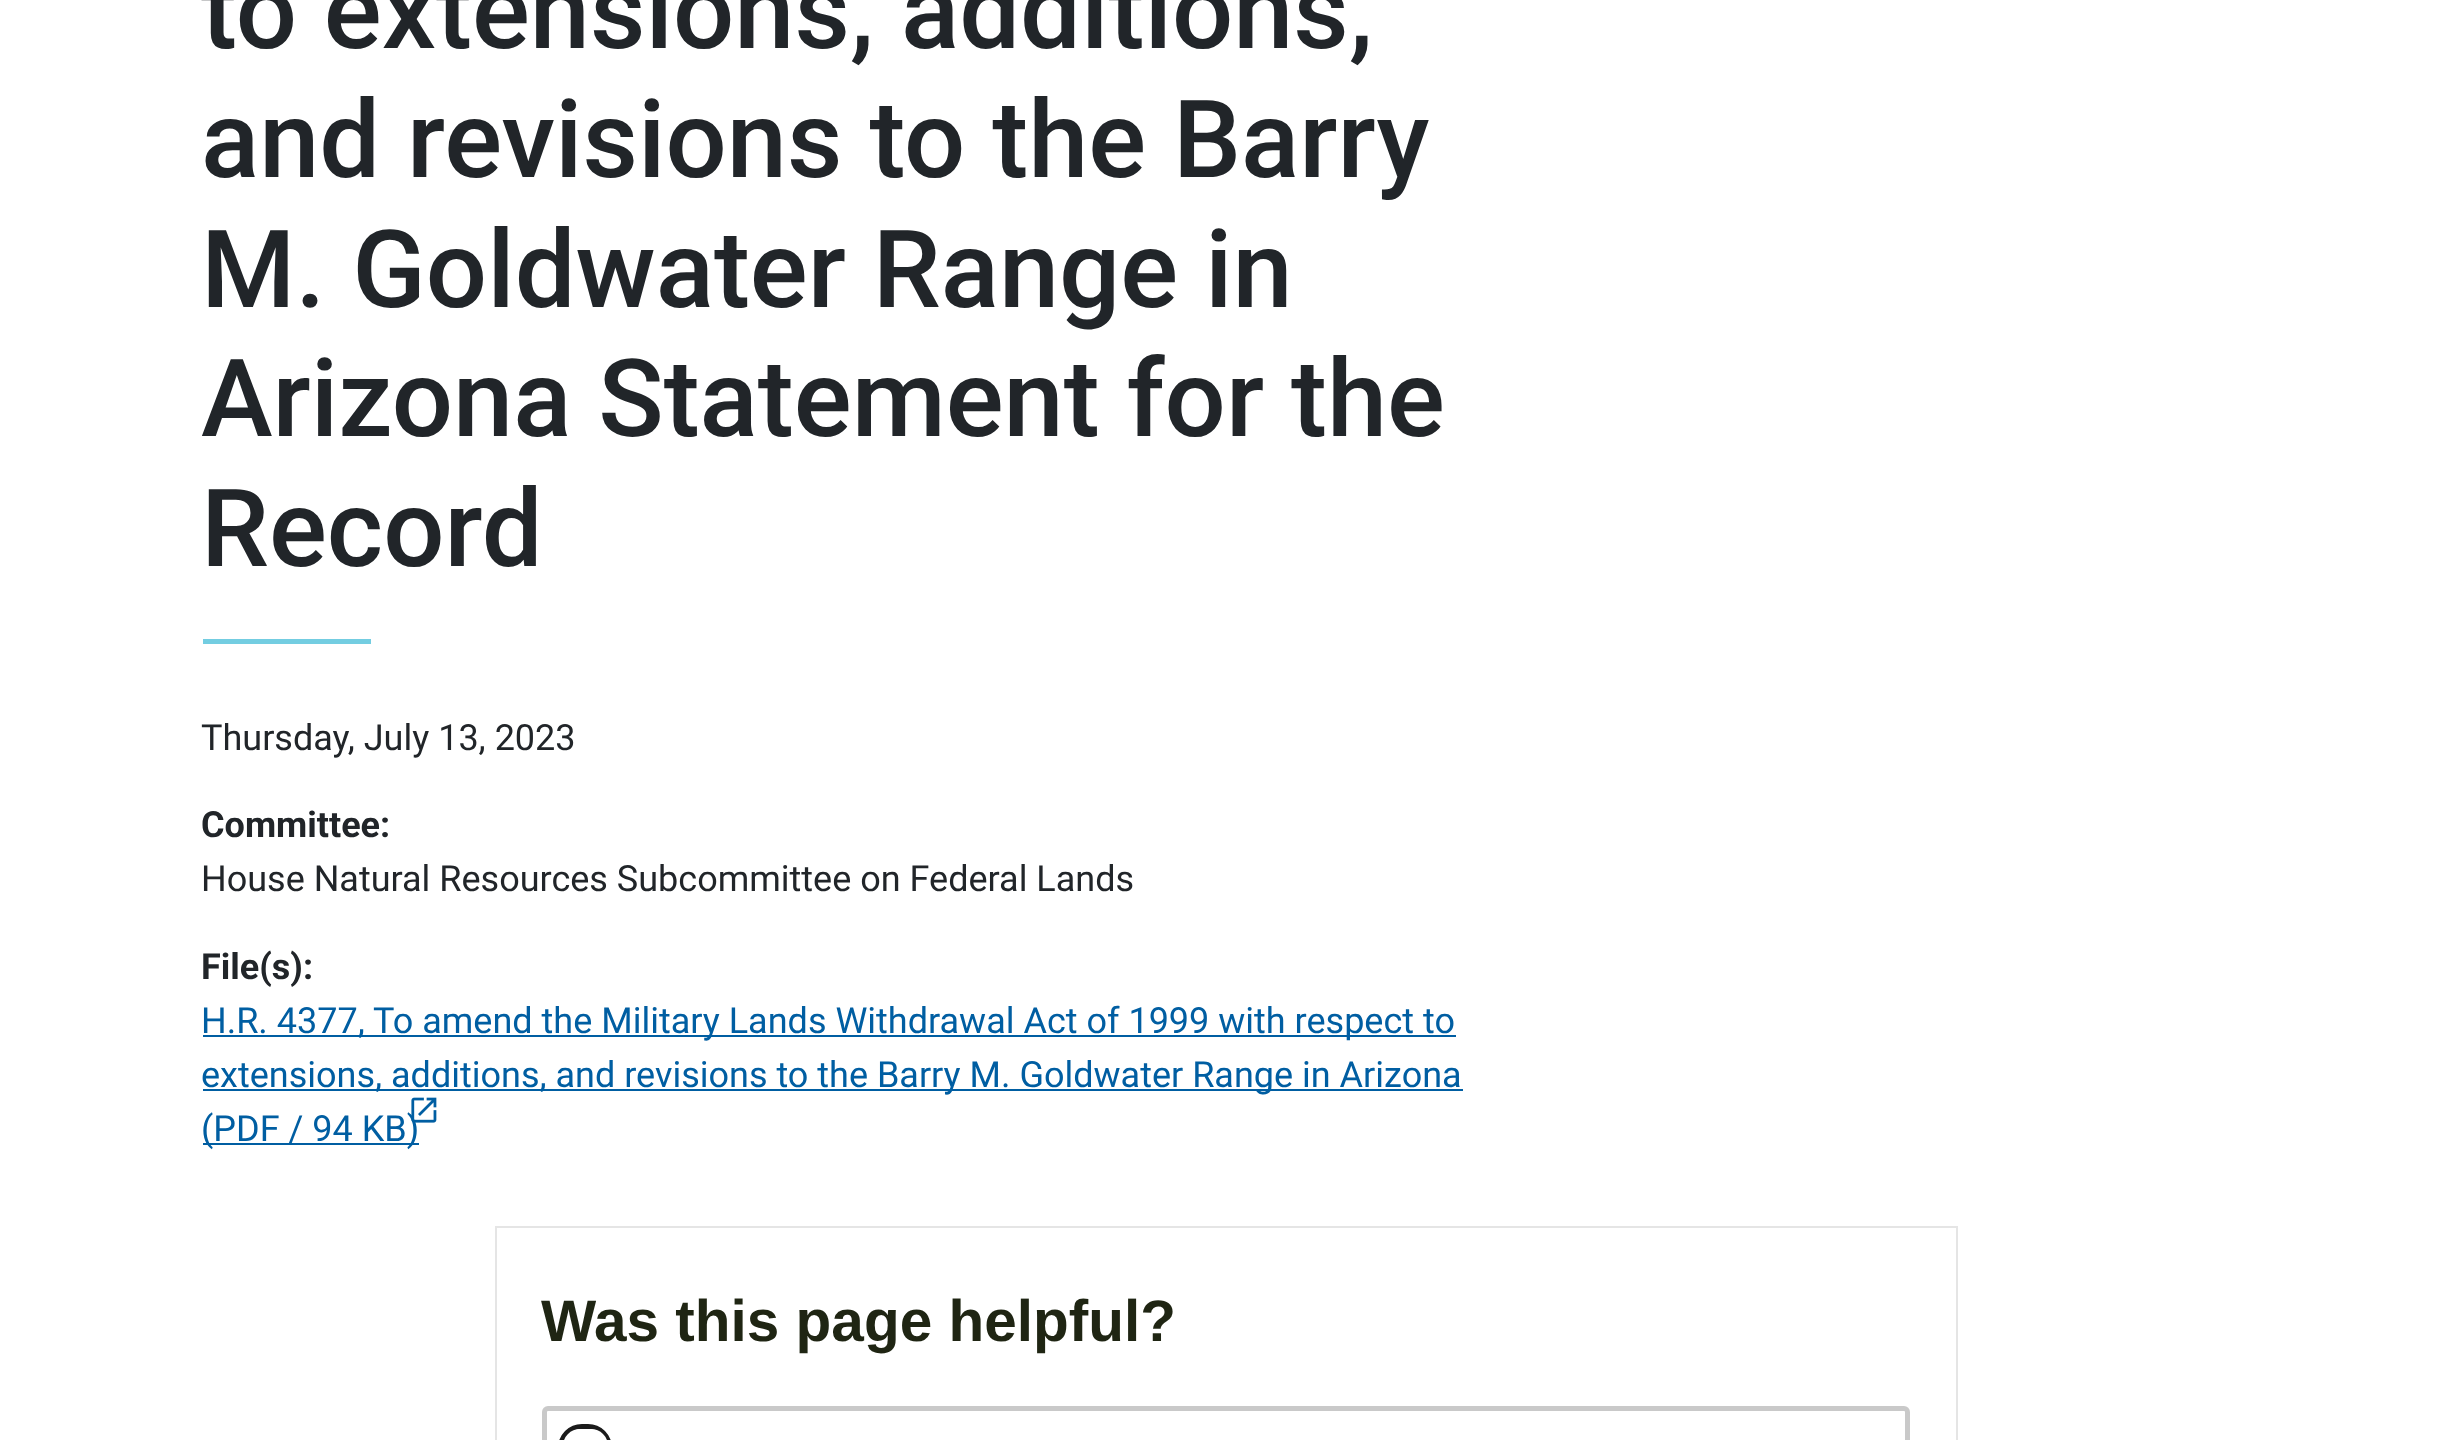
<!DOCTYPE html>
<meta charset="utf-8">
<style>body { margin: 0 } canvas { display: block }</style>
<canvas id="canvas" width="2450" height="1440"></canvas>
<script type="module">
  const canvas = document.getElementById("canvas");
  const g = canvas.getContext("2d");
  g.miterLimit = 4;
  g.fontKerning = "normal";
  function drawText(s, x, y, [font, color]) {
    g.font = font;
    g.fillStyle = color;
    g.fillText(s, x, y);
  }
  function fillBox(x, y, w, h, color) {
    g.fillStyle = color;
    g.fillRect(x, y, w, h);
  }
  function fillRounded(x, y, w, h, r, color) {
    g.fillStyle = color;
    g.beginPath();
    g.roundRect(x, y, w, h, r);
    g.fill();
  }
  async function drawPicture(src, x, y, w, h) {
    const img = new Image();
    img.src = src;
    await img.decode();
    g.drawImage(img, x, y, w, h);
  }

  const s1 = ["500 108px Roboto", "#212529"];
  const s2 = ["36px Roboto", "#212529"];
  const s3 = ["bold 36px Roboto", "#212529"];
  const s4 = ["36px Roboto", "#005EA2"];
  const s5 = ["bold 58.5px Liberation Sans", "#1F2513"];

  fillBox(0, 0, 2450, 1440, "#FFFFFF");
  drawText("to extensions, additions,", 201, 48, s1);
  drawText("and revisions to the Barry", 201, 177, s1);
  drawText("M. Goldwater Range in", 201, 307, s1);
  drawText("Arizona Statement for the", 201, 436, s1);
  drawText("Record", 201, 566, s1);
  fillBox(203, 639, 168, 5, "#73CDE1");
  drawText("Thursday, July 13, 2023", 201, 750, s2);
  drawText("Committee:", 201, 837, s3);
  drawText("House Natural Resources Subcommittee on Federal Lands", 201, 891, s2);
  drawText("File(s):", 201, 979, s3);
  fillBox(203, 1035, 1253, 2, "#005EA2");
  drawText("H.R. 4377, To amend the Military Lands Withdrawal Act of 1999 with respect to", 201, 1033, s4);
  fillBox(203, 1089, 1260, 2, "#005EA2");
  drawText("extensions, additions, and revisions to the Barry M. Goldwater Range in Arizona", 201, 1087, s4);
  fillBox(203, 1143, 216, 2, "#005EA2");
  drawText("(PDF / 94 KB)", 201, 1141, s4);
  await drawPicture("pic1.png", 411, 1097, 26, 26);
  g.strokeStyle = "#E5E5E5";
  g.lineWidth = 2;
  g.strokeRect(496, 1227, 1461, 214);
  drawText("Was this page helpful?", 541, 1341, s5);
  g.beginPath();
  g.roundRect(544.5, 1408.5, 1363, 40, 3.5);
  g.strokeStyle = "#C9C9C9";
  g.lineWidth = 5;
  g.stroke();
  g.beginPath();
  g.roundRect(560.5, 1426.5, 49, 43, 24.5);
  g.strokeStyle = "#1B1B1B";
  g.stroke();
  fillRounded(563, 1429, 45, 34, 22.5, "#FFFFFF");
</script>
